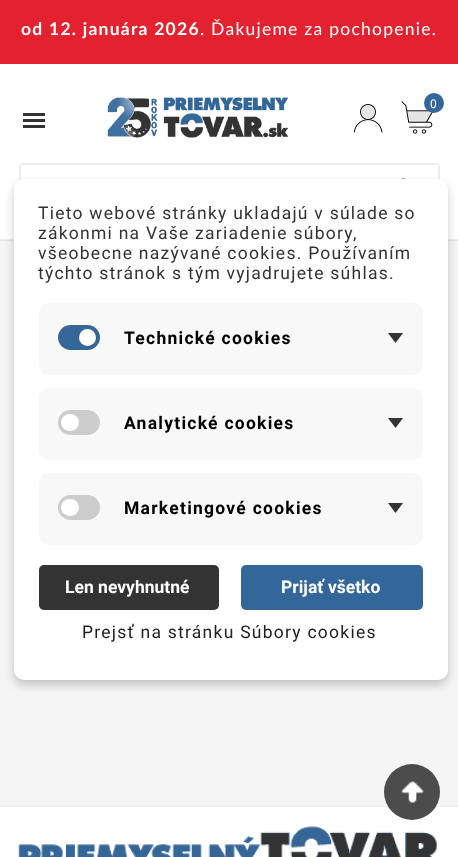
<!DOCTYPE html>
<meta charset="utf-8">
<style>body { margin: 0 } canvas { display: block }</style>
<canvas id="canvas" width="458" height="857"></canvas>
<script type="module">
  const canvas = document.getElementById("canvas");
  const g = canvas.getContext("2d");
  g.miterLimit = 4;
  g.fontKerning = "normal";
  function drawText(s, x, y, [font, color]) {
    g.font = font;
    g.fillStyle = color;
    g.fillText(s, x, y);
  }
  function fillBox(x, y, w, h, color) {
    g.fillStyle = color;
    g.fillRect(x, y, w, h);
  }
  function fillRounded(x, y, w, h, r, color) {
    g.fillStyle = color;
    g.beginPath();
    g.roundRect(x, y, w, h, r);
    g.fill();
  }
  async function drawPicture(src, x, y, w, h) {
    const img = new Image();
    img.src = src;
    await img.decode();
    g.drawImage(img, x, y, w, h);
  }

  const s1 = ["bold 17.5px Lato", "#FFFFFF"];
  const s2 = ["17.5px Lato", "#FFFFFF"];
  const s3 = ["12px Roboto", "#FFFFFF"];
  const s4 = ["17.5px Roboto", "#333333"];
  const s5 = ["bold 17.5px Roboto", "#000000"];
  const s6 = ["bold 17.5px Roboto", "#FFFFFF"];
  const s7 = ["17.5px Roboto", "#222222"];

  fillBox(0, 0, 458, 857, "#F5F5F5");
  fillBox(0, 0, 458, 64, "#E4222F");
  g.letterSpacing = "1.25px";
  drawText("od 12. januára 2026", 21, 35, s1);
  drawText(". Ďakujeme za pochopenie.", 200, 35, s2);
  fillBox(0, 64, 458, 175, "#FFFFFF");
  fillBox(0, 240, 458, 1, "#E5E5E5");
  fillBox(0, 239, 458, 1, "#EDEDED");
  await drawPicture("pic1.png", 107, 97, 182, 41);
  await drawPicture("pic2.png", 354, 104, 29, 29);
  await drawPicture("pic3.png", 401, 101, 32, 33);
  g.fillStyle = "#336699";
  g.beginPath();
  g.arc(434, 103, 10, 0, Math.PI * 2);
  g.fill();
  drawText("0", 430, 108, s3);
  fillBox(23, 113, 22, 3, "#333333");
  fillBox(23, 119, 22, 3, "#333333");
  fillBox(23, 125, 22, 3, "#333333");
  g.beginPath();
  g.roundRect(20.5, 164.5, 418, 54, 2.5);
  g.strokeStyle = "#EDEDED";
  g.lineWidth = 3;
  g.stroke();
  fillBox(21, 165, 352, 15, "#FFFFFF");
  fillBox(373, 165, 65, 14, "#FFFFFF");
  g.beginPath();
  g.arc(403.5, 189.5, 10.5, 0, Math.PI * 2);
  g.strokeStyle = "#000000";
  g.lineWidth = 0.8;
  g.stroke();
  fillBox(0, 807, 458, 50, "#FFFFFF");
  fillBox(0, 806, 458, 1, "#EDEDED");
  g.fillStyle = "#4C4C4C";
  g.beginPath();
  g.arc(412, 792, 28, 0, Math.PI * 2);
  g.fill();
  await drawPicture("pic4.png", 401, 781, 23, 22);
  await drawPicture("pic5.png", 18, 826, 419, 31);
  g.fillStyle = "rgba(0, 0, 0, 0.2)";
  g.filter = "blur(5px)";
  g.beginPath();
  g.roundRect(14, 184, 434, 501, 10);
  g.fill();
  g.filter = "none";
  fillRounded(14, 179, 434, 501, 10, "#FFFFFF");
  drawText("Tieto webové stránky ukladajú v súlade so", 38, 219, s4);
  drawText("zákonmi na Vaše zariadenie súbory,", 38, 239, s4);
  drawText("všeobecne nazývané cookies. Používaním", 38, 259, s4);
  drawText("týchto stránok s tým vyjadrujete súhlas.", 38, 279, s4);
  fillRounded(39, 303, 384, 72, 10, "#F8F8F8");
  fillRounded(58, 325, 42, 25, 12.5, "#336699");
  g.fillStyle = "#FFFFFF";
  g.beginPath();
  g.arc(87.5, 337.5, 8.5, 0, Math.PI * 2);
  g.fill();
  drawText("Technické cookies", 124, 344, s5);
  g.fillStyle = "#333333";
  g.beginPath();
  g.moveTo(388, 333);
  g.lineTo(403, 333);
  g.lineTo(395.5, 343);
  g.closePath();
  g.fill();
  fillRounded(39, 388, 384, 72, 10, "#F8F8F8");
  fillRounded(58, 410, 42, 25, 12.5, "#CCCCCC");
  fillRounded(61, 414, 18, 17, 8.5, "#FFFFFF");
  drawText("Analytické cookies", 124, 429, s5);
  g.fillStyle = "#333333";
  g.beginPath();
  g.moveTo(388, 418);
  g.lineTo(403, 418);
  g.lineTo(395.5, 428);
  g.closePath();
  g.fill();
  fillRounded(39, 473, 384, 72, 10, "#F8F8F8");
  fillRounded(58, 495, 42, 25, 12.5, "#CCCCCC");
  fillRounded(61, 499, 18, 17, 8.5, "#FFFFFF");
  drawText("Marketingové cookies", 124, 514, s5);
  g.fillStyle = "#333333";
  g.beginPath();
  g.moveTo(388, 503);
  g.lineTo(403, 503);
  g.lineTo(395.5, 513);
  g.closePath();
  g.fill();
  fillRounded(39, 565, 180, 45, 5, "#333333");
  g.letterSpacing = "0px";
  drawText("Len nevyhnutné", 65, 593, s6);
  fillRounded(241, 565, 182, 45, 5, "#336699");
  drawText("Prijať všetko", 281, 593, s6);
  g.letterSpacing = "1.25px";
  drawText("Prejsť na stránku Súbory cookies", 82, 638, s7);
</script>
